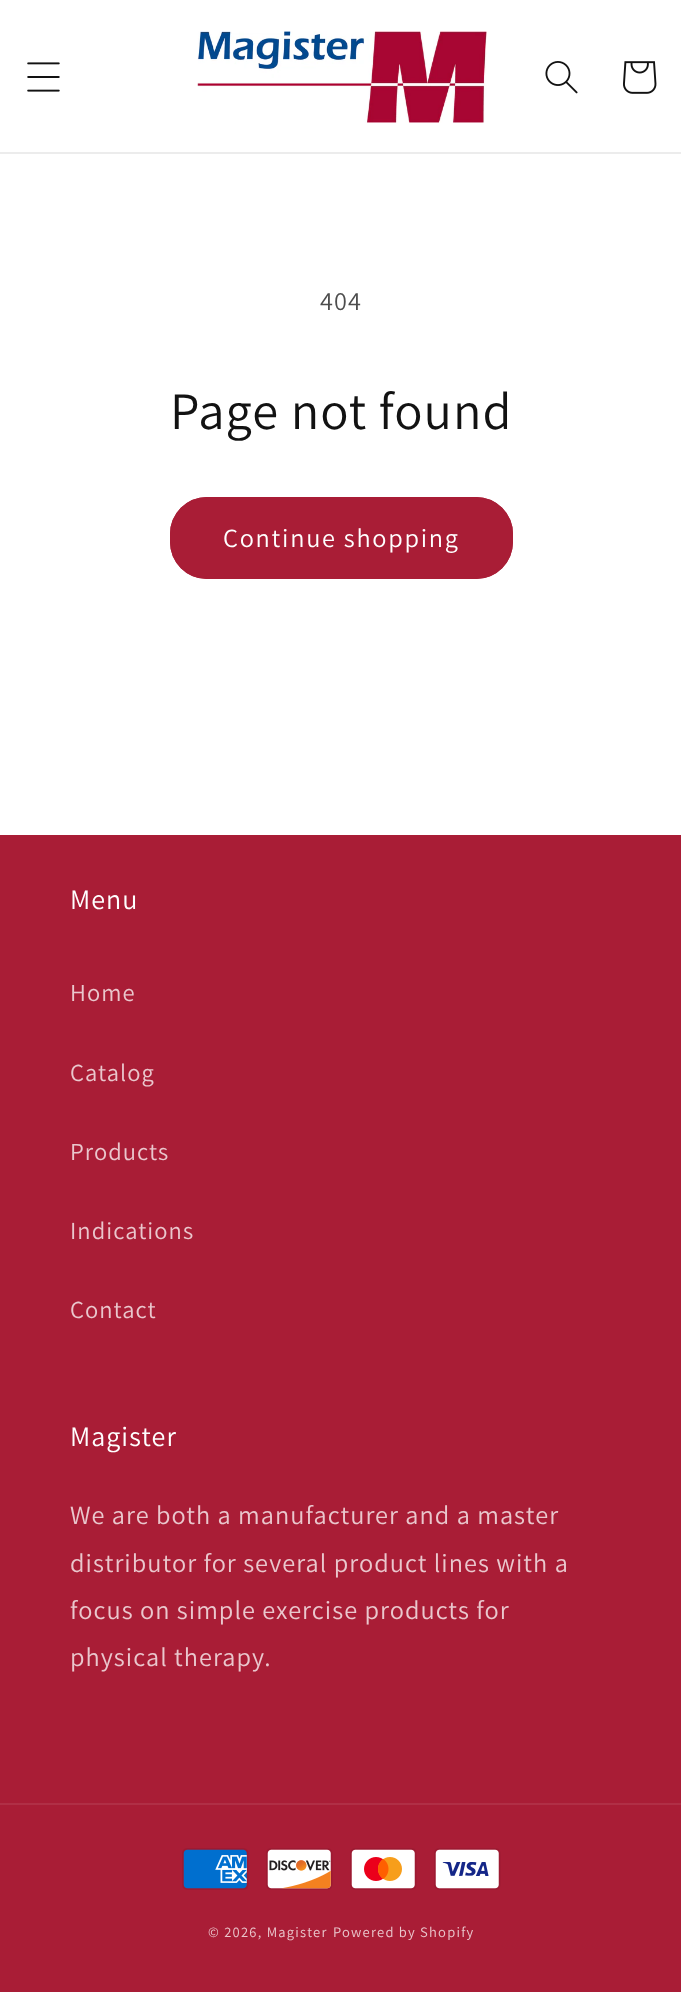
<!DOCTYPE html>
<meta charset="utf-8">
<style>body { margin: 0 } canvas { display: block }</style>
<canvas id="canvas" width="681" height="1992"></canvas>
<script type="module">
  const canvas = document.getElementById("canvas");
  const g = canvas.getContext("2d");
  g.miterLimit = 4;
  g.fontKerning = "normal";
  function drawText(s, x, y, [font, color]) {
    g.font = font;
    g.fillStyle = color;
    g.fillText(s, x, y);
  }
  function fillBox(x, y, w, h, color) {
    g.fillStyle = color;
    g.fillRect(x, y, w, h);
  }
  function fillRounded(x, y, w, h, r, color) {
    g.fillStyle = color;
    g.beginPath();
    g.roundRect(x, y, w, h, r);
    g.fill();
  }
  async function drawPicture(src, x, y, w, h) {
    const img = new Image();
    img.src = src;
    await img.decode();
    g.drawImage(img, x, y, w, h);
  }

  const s1 = ["26.25px Assistant", "#4D4D4D"];
  const s2 = ["52.5px Assistant", "#121212"];
  const s3 = ["26.25px Assistant", "#FFFFFF"];
  const s4 = ["28px Assistant", "#FFFFFF"];
  const s5 = ["24.5px Assistant", "#EAC7CD"];
  const s6 = ["26.25px Assistant", "#EAC7CD"];
  const s7 = ["14.5px Assistant", "#EAC7CD"];

  fillBox(0, 0, 681, 1992, "#FFFFFF");
  fillBox(0, 152, 681, 2, "#ECECEC");
  await drawPicture("pic1.png", 27, 62, 33, 30);
  await drawPicture("pic2.png", 197, 31, 290, 92);
  await drawPicture("pic3.png", 545, 61, 33, 33);
  await drawPicture("pic4.png", 623, 61, 34, 33);
  g.letterSpacing = "1.05px";
  drawText("404", 320, 310, s1);
  drawText("Page not found", 170, 429, s2);
  fillRounded(170, 497, 343, 82, 37, "#A91D36");
  g.beginPath();
  g.roundRect(171, 498, 341, 80, 36);
  g.strokeStyle = "#A91D36";
  g.lineWidth = 2;
  g.stroke();
  g.letterSpacing = "1.75px";
  drawText("Continue shopping", 223, 547, s3);
  fillBox(0, 835, 681, 1157, "#A91D36");
  g.letterSpacing = "1.05px";
  drawText("Menu", 70, 909, s4);
  drawText("Home", 70, 1001, s5);
  drawText("Catalog", 70, 1081, s5);
  drawText("Products", 70, 1160, s5);
  drawText("Indications", 70, 1239, s5);
  drawText("Contact", 70, 1318, s5);
  drawText("Magister", 70, 1446, s4);
  drawText("We are both a manufacturer and a master", 70, 1524, s6);
  drawText("distributor for several product lines with a", 70, 1572, s6);
  drawText("focus on simple exercise products for", 70, 1619, s6);
  drawText("physical therapy.", 70, 1666, s6);
  fillBox(0, 1803, 681, 2, "#B02F46");
  await drawPicture("pic5.png", 182, 1848, 67, 42);
  await drawPicture("pic6.png", 266, 1848, 67, 42);
  await drawPicture("pic7.png", 350, 1848, 67, 42);
  await drawPicture("pic8.png", 434, 1848, 67, 42);
  g.letterSpacing = "1.25px";
  drawText("© 2026, Magister", 208, 1937, s7);
  drawText("Powered by Shopify", 333, 1937, s7);
</script>
